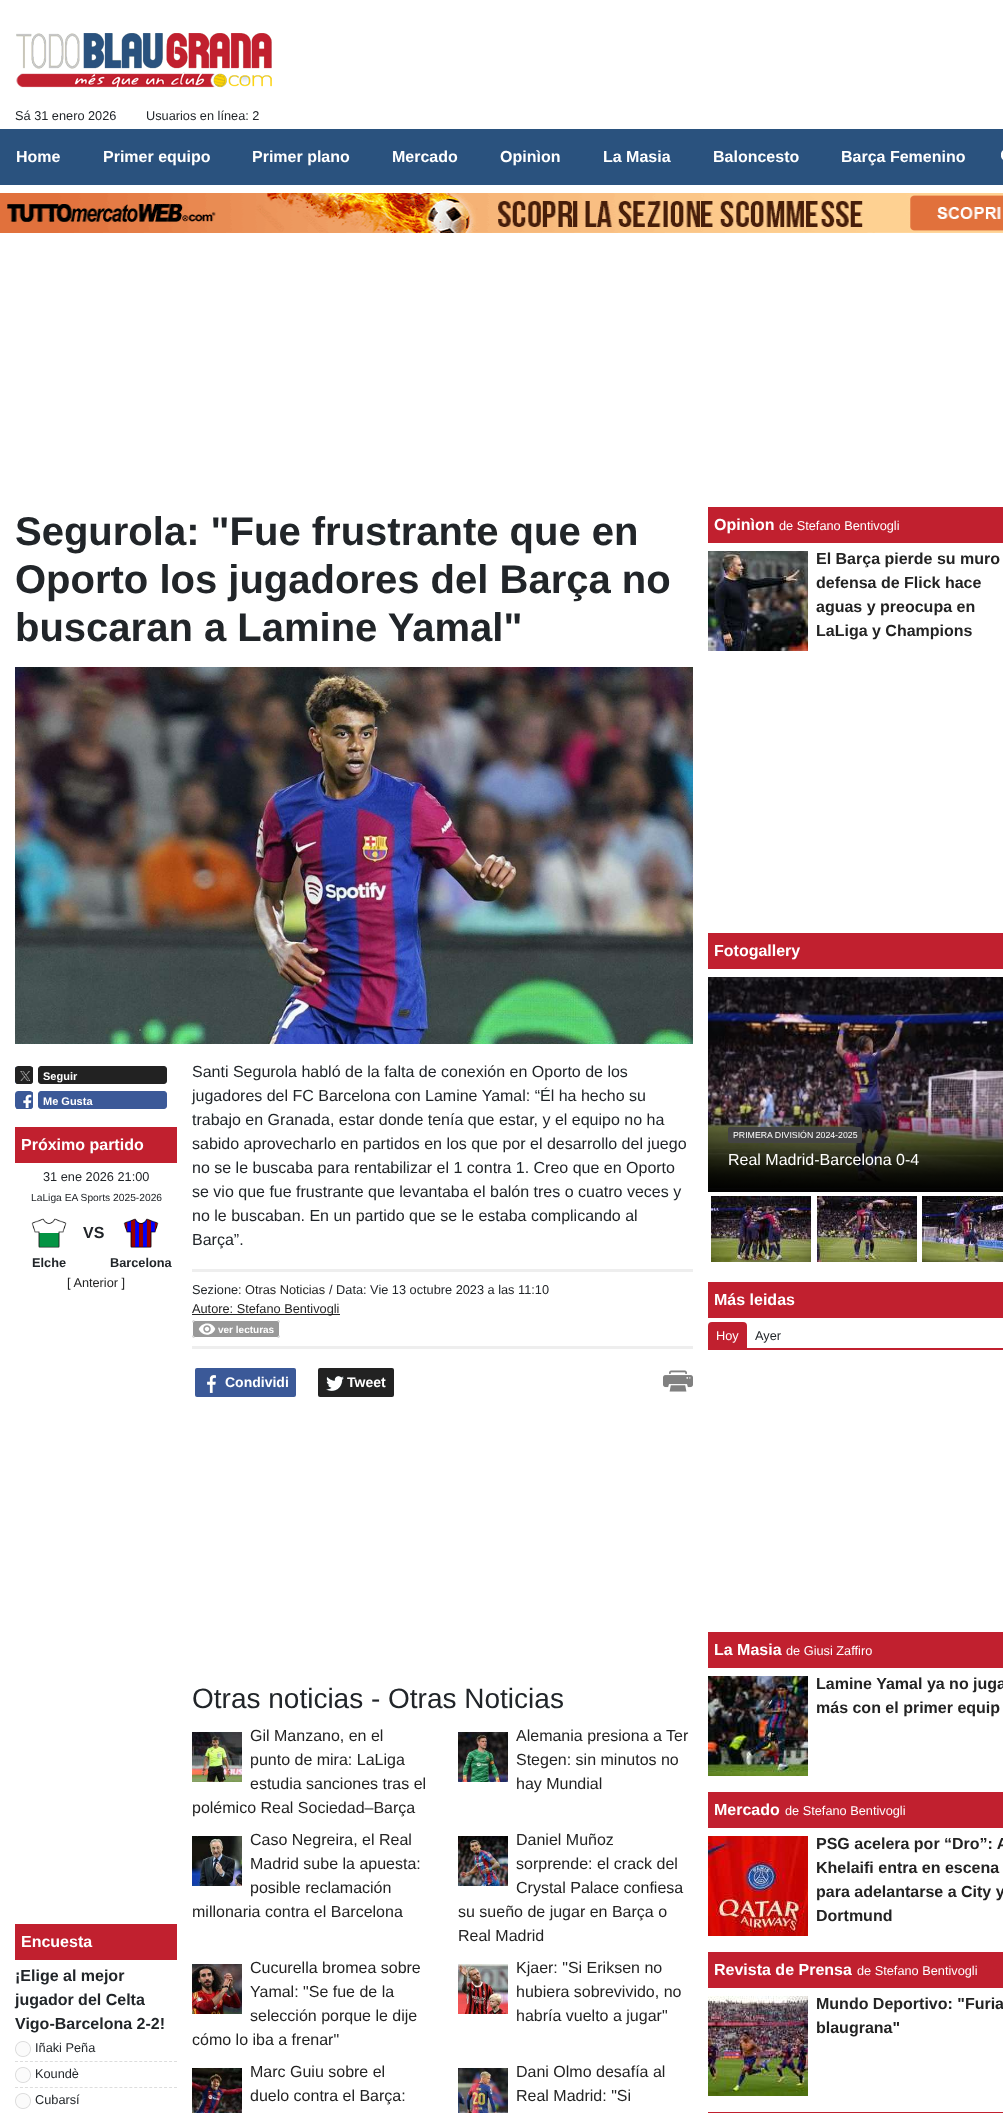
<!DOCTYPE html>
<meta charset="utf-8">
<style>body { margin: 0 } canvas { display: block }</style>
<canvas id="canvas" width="1003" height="2113"></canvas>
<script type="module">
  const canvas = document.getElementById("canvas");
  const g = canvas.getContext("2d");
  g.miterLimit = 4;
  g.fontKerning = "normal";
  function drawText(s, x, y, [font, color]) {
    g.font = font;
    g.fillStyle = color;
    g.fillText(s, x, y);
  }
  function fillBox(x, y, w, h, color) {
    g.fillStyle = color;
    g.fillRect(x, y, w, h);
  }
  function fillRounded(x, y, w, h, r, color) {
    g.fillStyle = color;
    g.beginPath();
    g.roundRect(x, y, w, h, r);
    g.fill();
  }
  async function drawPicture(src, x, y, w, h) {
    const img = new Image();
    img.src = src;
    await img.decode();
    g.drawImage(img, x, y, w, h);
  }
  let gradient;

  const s1 = ["12.75px Liberation Sans", "#212529"];
  const s2 = ["bold 16px Liberation Sans", "#FFFFFF"];
  const s3 = ["bold 40px Liberation Sans", "#212529"];
  const s4 = ["bold 11px Liberation Sans", "#FFFFFF"];
  const s5 = ["10.25px Liberation Sans", "#212529"];
  const s6 = ["bold 16px Liberation Sans", "#212529"];
  const s7 = ["bold 12.75px Liberation Sans", "#212529"];
  const s8 = ["12.75px Liberation Sans", "#232323"];
  const s9 = ["16px Liberation Sans", "#212529"];
  const s10 = ["bold 10px Liberation Sans", "#FFFFFF"];
  const s11 = ["bold 14px Liberation Sans", "#FFFFFF"];
  const s12 = ["28px Liberation Sans", "#212529"];
  const s13 = ["16px Liberation Sans", "#232323"];
  const s14 = ["12.75px Liberation Sans", "#FFFFFF"];
  const s15 = ["bold 16px Liberation Sans", "#232323"];
  const s16 = ["8.75px Liberation Sans", "#FFFFFF"];
  const s17 = ["16px Liberation Sans", "#FFFFFF"];

  fillBox(0, 0, 1003, 2113, "#FFFFFF");
  await drawPicture("pic1.png", 16, 33, 256, 55);
  drawText("Sá 31 enero 2026", 15, 120, s1);
  drawText("Usuarios en línea: 2", 146, 120, s1);
  fillBox(0, 129, 1003, 56, "#2A527E");
  drawText("Home", 16, 162, s2);
  drawText("Primer equipo", 103, 162, s2);
  drawText("Primer plano", 252, 162, s2);
  drawText("Mercado", 392, 162, s2);
  drawText("Opinìon", 500, 162, s2);
  drawText("La Masia", 603, 162, s2);
  drawText("Baloncesto", 713, 162, s2);
  drawText("Barça Femenino", 841, 162, s2);
  g.save();
  g.beginPath();
  g.rect(1001, 149, 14, 16);
  g.clip();
  g.beginPath();
  g.arc(1007, 155, 5, 0, Math.PI * 2);
  g.strokeStyle = "#FFFFFF";
  g.lineWidth = 2.5;
  g.stroke();
  g.restore();
  await drawPicture("pic2.png", 0, 193, 1003, 40);
  drawText("Segurola: \"Fue frustrante que en", 15, 545, s3);
  drawText("Oporto los jugadores del Barça no", 15, 593, s3);
  drawText("buscaran a Lamine Yamal\"", 15, 641, s3);
  await drawPicture("pic3.png", 15, 667, 678, 377);
  await drawPicture("pic4.png", 15, 1067, 18, 17);
  g.beginPath();
  g.roundRect(15.5, 1066.5, 17, 17, 2.5);
  g.strokeStyle = "#222222";
  g.stroke();
  g.fillStyle = "#222222";
  g.beginPath();
  g.roundRect(38.5, 1066.5, 128, 17, 2.5);
  g.fill();
  g.stroke();
  drawText("Seguir", 43, 1080, s4);
  await drawPicture("pic5.png", 16, 1092, 17, 17);
  g.beginPath();
  g.roundRect(15.5, 1091.5, 17, 17, 2.5);
  g.strokeStyle = "#3B5998";
  g.stroke();
  g.fillStyle = "#3B5998";
  g.beginPath();
  g.roundRect(38.5, 1091.5, 128, 17, 2.5);
  g.fill();
  g.stroke();
  drawText("Me Gusta", 43, 1105, s4);
  fillBox(15, 1127, 162, 36, "#C1202F");
  drawText("Próximo partido", 21, 1150, s2);
  drawText("31 ene 2026 21:00", 43, 1181, s1);
  drawText("LaLiga EA Sports 2025-2026", 31, 1201, s5);
  await drawPicture("pic6.png", 31, 1218, 36, 30);
  drawText("VS", 83, 1238, s6);
  await drawPicture("pic7.png", 123, 1218, 36, 30);
  drawText("Elche", 32, 1267, s7);
  drawText("Barcelona", 110, 1267, s7);
  drawText("[ Anterior ]", 67, 1287, s8);
  fillBox(15, 1924, 162, 36, "#C1202F");
  drawText("Encuesta", 21, 1947, s2);
  drawText("¡Elige al mejor", 15, 1981, s6);
  drawText("jugador del Celta", 15, 2005, s6);
  drawText("Vigo-Barcelona 2-2!", 15, 2029, s6);
  g.beginPath();
  g.moveTo(15, 2061.5);
  g.lineTo(177, 2061.5);
  g.strokeStyle = "#DDDDDD";
  g.setLineDash([3, 1.97]);
  g.stroke();
  await drawPicture("pic8.png", 15, 2041, 16, 16);
  drawText("Iñaki Peña", 35, 2052, s1);
  g.beginPath();
  g.moveTo(15, 2087.5);
  g.lineTo(177, 2087.5);
  g.stroke();
  await drawPicture("pic8.png", 15, 2067, 16, 16);
  drawText("Koundè", 35, 2078, s1);
  await drawPicture("pic8.png", 15, 2093, 16, 16);
  drawText("Cubarsí", 35, 2104, s1);
  drawText("Santi Segurola habló de la falta de conexión en Oporto de los", 192, 1077, s9);
  drawText("jugadores del FC Barcelona con Lamine Yamal: “Él ha hecho su", 192, 1101, s9);
  drawText("trabajo en Granada, estar donde tenía que estar, y el equipo no ha", 192, 1125, s9);
  drawText("sabido aprovecharlo en partidos en los que por el desarrollo del juego", 192, 1149, s9);
  drawText("no se le buscaba para rentabilizar el 1 contra 1. Creo que en Oporto", 192, 1173, s9);
  drawText("se vio que fue frustrante que levantaba el balón tres o cuatro veces y", 192, 1197, s9);
  drawText("no le buscaban. En un partido que se le estaba complicando al", 192, 1221, s9);
  drawText("Barça”.", 192, 1245, s9);
  fillBox(192, 1269, 501, 3, "#EEEEEE");
  fillBox(192, 1346, 501, 3, "#EEEEEE");
  drawText("Sezione:", 192, 1294, s1);
  drawText("Otras Noticias", 245, 1294, s8);
  drawText("/ Data: Vie 13 octubre 2023 a las 11:10", 329, 1294, s1);
  fillBox(192, 1314, 148, 1, "#232323");
  drawText("Autore: Stefano Bentivogli", 192, 1313, s8);
  fillRounded(192, 1320, 88, 18, 3, "#999999");
  await drawPicture("pic9.png", 198, 1323, 18, 12);
  g.beginPath();
  g.roundRect(192.5, 1320.5, 87, 17, 2.5);
  g.strokeStyle = "#FFFFFF";
  g.setLineDash([]);
  g.stroke();
  drawText("ver lecturas", 218, 1333, s10);
  fillRounded(195, 1368, 101, 29, 2, "#3B5998");
  await drawPicture("pic10.png", 207, 1375, 9, 18);
  drawText("Condividi", 225, 1387, s11);
  fillRounded(318, 1368, 76, 29, 2, "#222222");
  await drawPicture("pic11.png", 326, 1376, 18, 15);
  drawText("Tweet", 347, 1387, s11);
  await drawPicture("pic12.png", 663, 1370, 30, 22);
  drawText("Otras noticias - Otras Noticias", 192, 1708, s12);
  await drawPicture("pic13.png", 192, 1732, 50, 50);
  drawText("Gil Manzano, en el", 250, 1741, s13);
  drawText("punto de mira: LaLiga", 250, 1765, s13);
  drawText("estudia sanciones tras el", 250, 1789, s13);
  drawText("polémico Real Sociedad–Barça", 192, 1813, s13);
  await drawPicture("pic14.png", 458, 1732, 50, 50);
  drawText("Alemania presiona a Ter", 516, 1741, s13);
  drawText("Stegen: sin minutos no", 516, 1765, s13);
  drawText("hay Mundial", 516, 1789, s13);
  await drawPicture("pic15.png", 192, 1836, 50, 50);
  drawText("Caso Negreira, el Real", 250, 1845, s13);
  drawText("Madrid sube la apuesta:", 250, 1869, s13);
  drawText("posible reclamación", 250, 1893, s13);
  drawText("millonaria contra el Barcelona", 192, 1917, s13);
  await drawPicture("pic16.png", 458, 1836, 50, 50);
  drawText("Daniel Muñoz", 516, 1845, s13);
  drawText("sorprende: el crack del", 516, 1869, s13);
  drawText("Crystal Palace confiesa", 516, 1893, s13);
  drawText("su sueño de jugar en Barça o", 458, 1917, s13);
  drawText("Real Madrid", 458, 1941, s13);
  await drawPicture("pic17.png", 192, 1964, 50, 50);
  drawText("Cucurella bromea sobre", 250, 1973, s13);
  drawText("Yamal: \"Se fue de la", 250, 1997, s13);
  drawText("selección porque le dije", 250, 2021, s13);
  drawText("cómo lo iba a frenar\"", 192, 2045, s13);
  await drawPicture("pic18.png", 458, 1964, 50, 50);
  drawText("Kjaer: \"Si Eriksen no", 516, 1973, s13);
  drawText("hubiera sobrevivido, no", 516, 1997, s13);
  drawText("habría vuelto a jugar\"", 516, 2021, s13);
  await drawPicture("pic19.png", 192, 2068, 50, 45);
  drawText("Marc Guiu sobre el", 250, 2077, s13);
  drawText("duelo contra el Barça:", 250, 2101, s13);
  await drawPicture("pic20.png", 458, 2068, 50, 45);
  drawText("Dani Olmo desafía al", 516, 2077, s13);
  drawText("Real Madrid: \"Si", 516, 2101, s13);
  fillBox(708, 507, 295, 36, "#C1202F");
  drawText("Opinìon", 714, 530, s2);
  drawText("de Stefano Bentivogli", 779, 530, s14);
  await drawPicture("pic21.png", 708, 551, 100, 100);
  drawText("El Barça pierde su muro", 816, 564, s15);
  drawText("defensa de Flick hace", 816, 588, s15);
  drawText("aguas y preocupa en", 816, 612, s15);
  drawText("LaLiga y Champions", 816, 636, s15);
  fillBox(708, 933, 295, 36, "#C1202F");
  drawText("Fotogallery", 714, 956, s2);
  await drawPicture("pic22.png", 708, 977, 295, 211);
  gradient = g.createLinearGradient(867, 1104, 867, 1192);
  gradient.addColorStop(0, "rgba(0, 0, 0, 0)");
  gradient.addColorStop(0.11, "rgba(0, 0, 0, 0.13)");
  gradient.addColorStop(0.29, "rgba(0, 0, 0, 0.33)");
  gradient.addColorStop(0.63, "rgba(0, 0, 0, 0.74)");
  gradient.addColorStop(0.8, "rgba(0, 0, 0, 0.91)");
  gradient.addColorStop(1, "#000000");
  g.fillStyle = gradient;
  g.fillRect(708, 1106, 295, 86);
  fillRounded(728, 1127, 134, 16, 2, "#444444");
  drawText("PRIMERA DIVISIÓN 2024-2025", 733, 1138, s16);
  drawText("Real Madrid-Barcelona 0-4", 728, 1165, s17);
  await drawPicture("pic23.png", 711, 1196, 100, 66);
  await drawPicture("pic24.png", 817, 1196, 100, 66);
  await drawPicture("pic25.png", 922, 1196, 81, 66);
  fillBox(708, 1282, 295, 36, "#C1202F");
  drawText("Más leidas", 714, 1305, s2);
  fillBox(708, 1348, 295, 2, "#C1202F");
  g.beginPath();
  g.roundRect(708, 1322, 39, 27, [4, 4, 0, 0]);
  g.fill();
  drawText("Hoy", 716, 1340, s14);
  drawText("Ayer", 755, 1340, s1);
  fillBox(708, 1632, 295, 36, "#C1202F");
  drawText("La Masia", 714, 1655, s2);
  drawText("de Giusi Zaffiro", 786, 1655, s14);
  await drawPicture("pic26.png", 708, 1676, 100, 100);
  drawText("Lamine Yamal ya no juga", 816, 1689, s15);
  drawText("más con el primer equip", 816, 1713, s15);
  fillBox(708, 1792, 295, 36, "#C1202F");
  drawText("Mercado", 714, 1815, s2);
  drawText("de Stefano Bentivogli", 785, 1815, s14);
  await drawPicture("pic27.png", 708, 1836, 100, 100);
  drawText("PSG acelera por “Dro”: A", 816, 1849, s15);
  drawText("Khelaifi entra en escena", 816, 1873, s15);
  drawText("para adelantarse a City y", 816, 1897, s15);
  drawText("Dortmund", 816, 1921, s15);
  fillBox(708, 1952, 295, 36, "#C1202F");
  drawText("Revista de Prensa", 714, 1975, s2);
  drawText("de Stefano Bentivogli", 857, 1975, s14);
  await drawPicture("pic28.png", 708, 1996, 100, 100);
  drawText("Mundo Deportivo: \"Furia", 816, 2009, s15);
  drawText("blaugrana\"", 816, 2033, s15);
  fillBox(708, 2112, 295, 1, "#C1202F");
</script>
